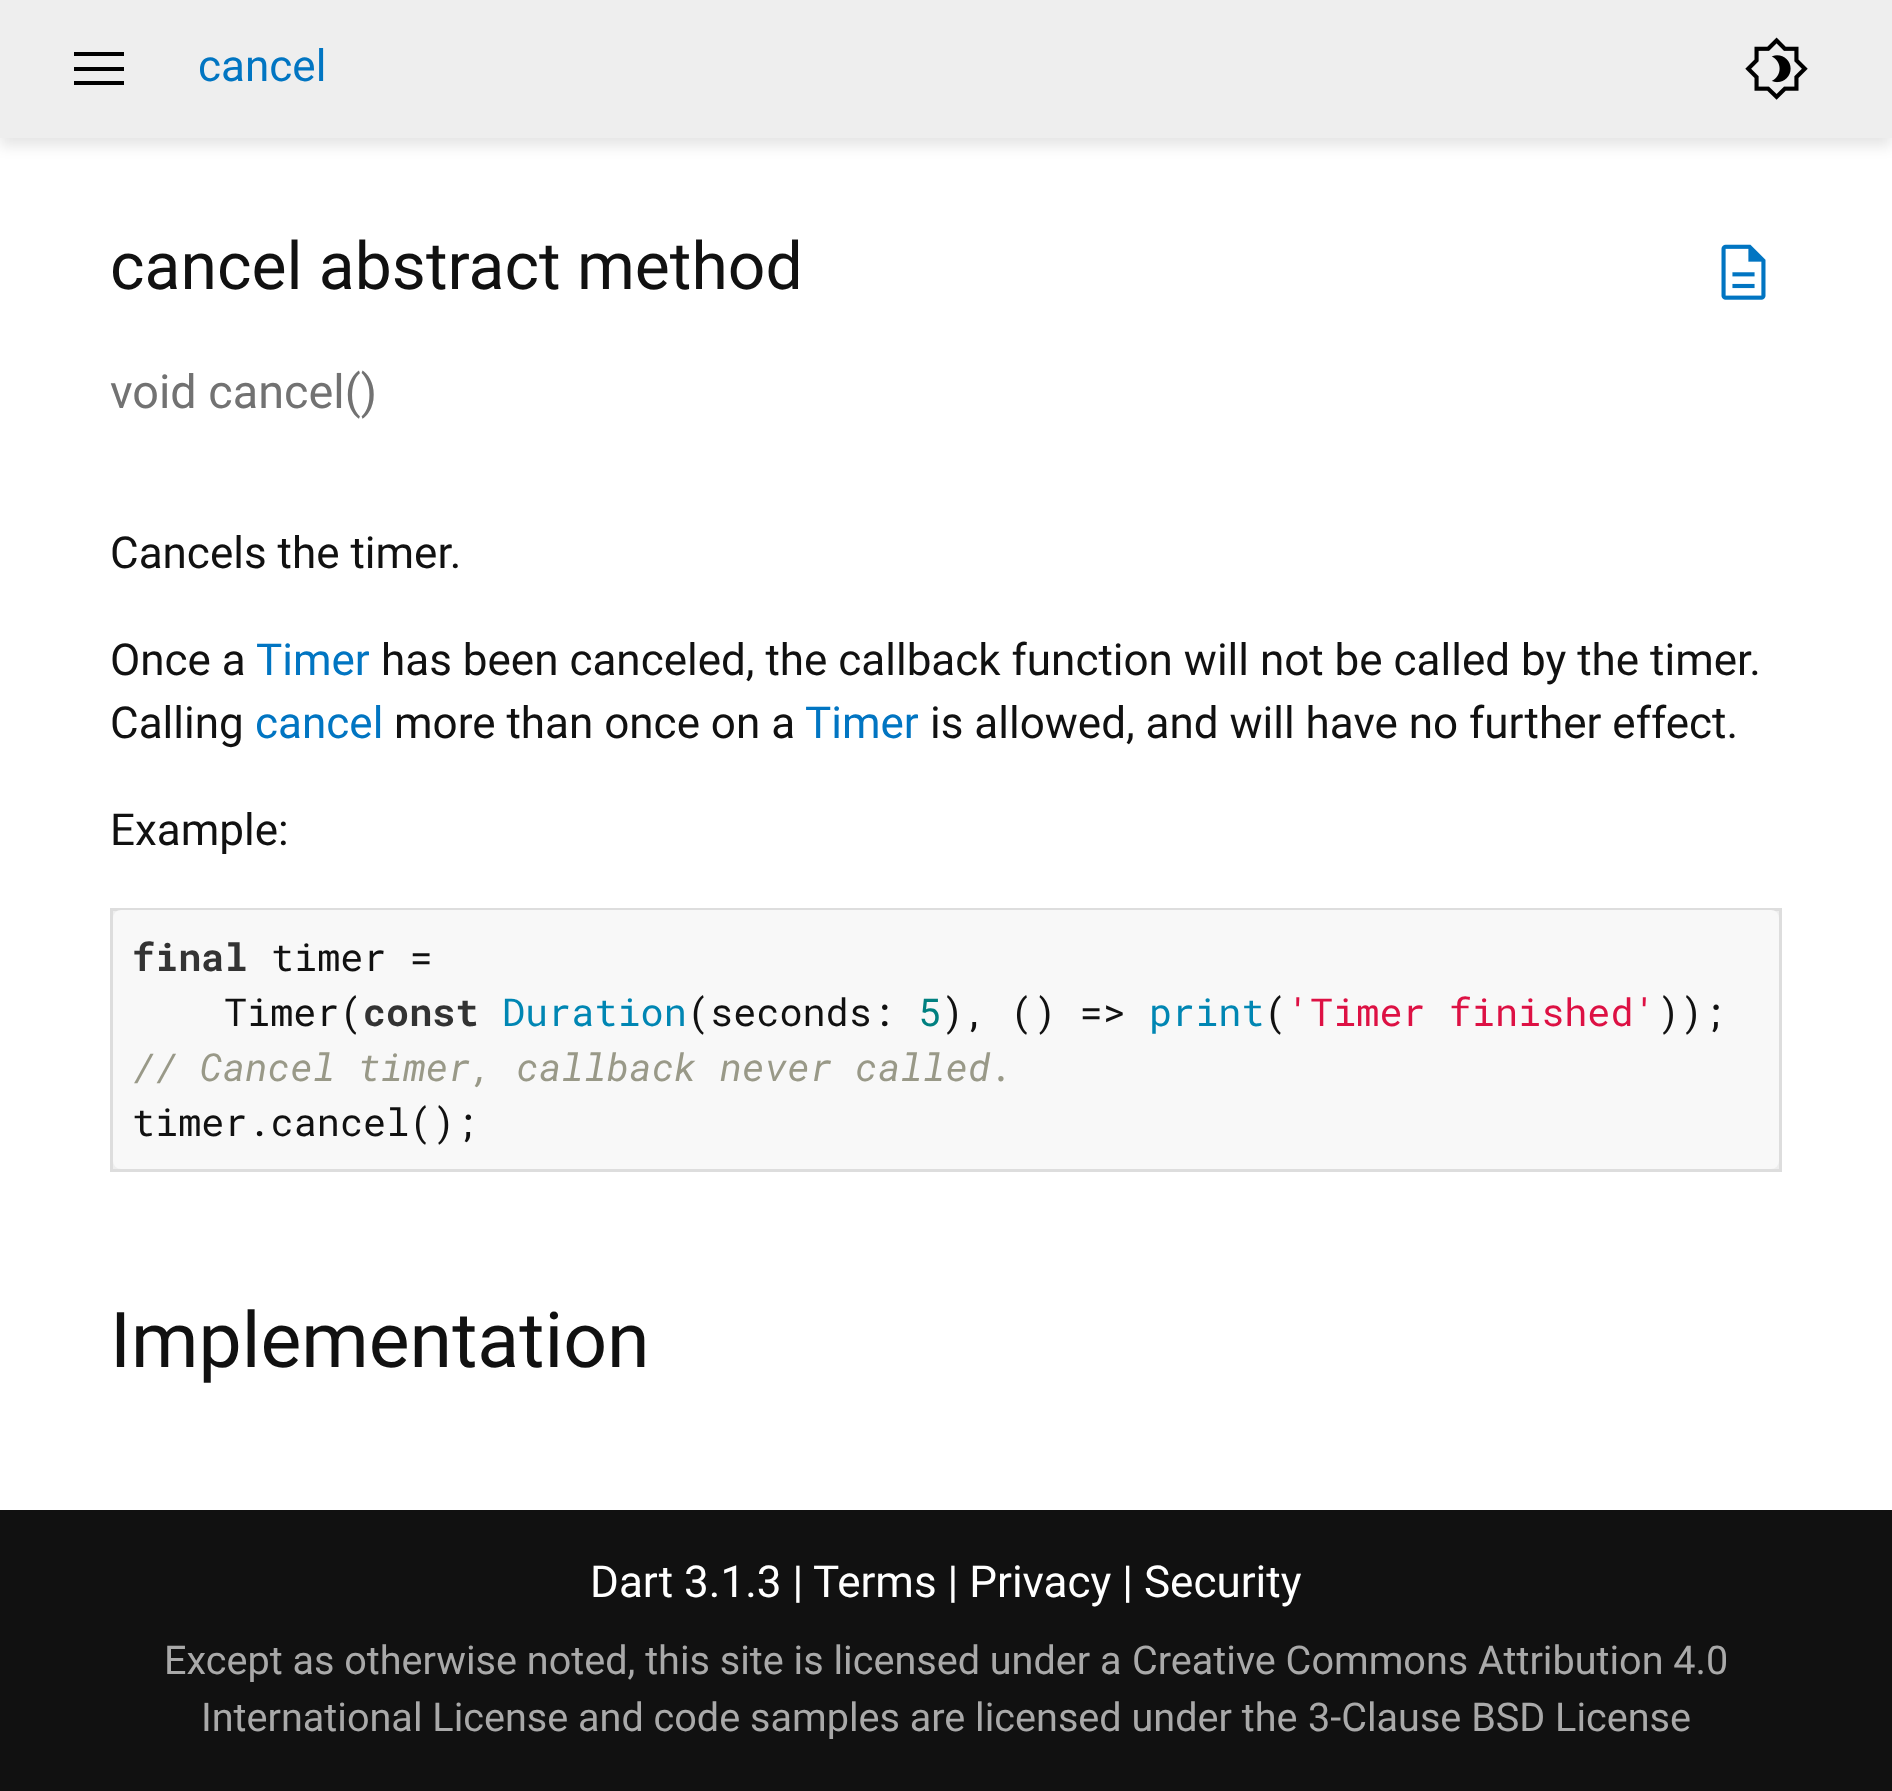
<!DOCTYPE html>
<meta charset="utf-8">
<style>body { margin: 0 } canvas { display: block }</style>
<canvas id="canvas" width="1892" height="1791"></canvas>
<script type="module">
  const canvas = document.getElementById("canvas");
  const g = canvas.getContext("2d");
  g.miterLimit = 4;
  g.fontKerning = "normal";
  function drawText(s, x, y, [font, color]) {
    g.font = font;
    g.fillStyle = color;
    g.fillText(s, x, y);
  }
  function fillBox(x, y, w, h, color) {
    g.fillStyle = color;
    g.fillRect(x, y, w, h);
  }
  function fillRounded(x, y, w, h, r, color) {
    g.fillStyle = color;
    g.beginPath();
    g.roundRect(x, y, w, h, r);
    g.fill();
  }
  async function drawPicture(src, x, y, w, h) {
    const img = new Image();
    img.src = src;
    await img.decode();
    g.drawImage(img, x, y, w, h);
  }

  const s1 = ["44px Roboto", "#0175C2"];
  const s2 = ["66px Roboto", "#111111"];
  const s3 = ["46.75px Roboto", "#727272"];
  const s4 = ["44px Roboto", "#111111"];
  const s5 = ["bold 38.5px Roboto Mono", "#333333"];
  const s6 = ["38.5px Roboto Mono", "#111111"];
  const s7 = ["38.5px Roboto Mono", "#0086B3"];
  const s8 = ["38.5px Roboto Mono", "#008080"];
  const s9 = ["38.5px Roboto Mono", "#DD1144"];
  const s10 = ["italic 38.5px Roboto Mono", "#999988"];
  const s11 = ["77px Roboto", "#111111"];
  const s12 = ["44px Roboto", "#FFFFFF"];
  const s13 = ["39.6px Roboto", "#A9A9A9"];

  fillBox(0, 0, 1892, 1791, "#FFFFFF");
  g.fillStyle = "rgba(0, 0, 0, 0.1)";
  g.filter = "blur(7px)";
  g.beginPath();
  g.rect(0, 8, 1892, 138);
  g.fill();
  g.filter = "none";
  fillBox(0, 0, 1892, 138, "#EEEEEE");
  g.fillStyle = "#000000";
  g.beginPath();
  g.moveTo(74, 85);
  g.lineTo(74, 81);
  g.lineTo(124, 81);
  g.lineTo(124, 85);
  g.closePath();
  g.moveTo(74, 71);
  g.lineTo(74, 67);
  g.lineTo(124, 67);
  g.lineTo(124, 71);
  g.closePath();
  g.moveTo(74, 56);
  g.lineTo(74, 52);
  g.lineTo(124, 52);
  g.lineTo(124, 56);
  g.closePath();
  g.fill();
  drawText("cancel", 198, 81, s1);
  await drawPicture("pic1.png", 1745, 37, 63, 63);
  drawText("cancel abstract method", 110, 289, s2);
  await drawPicture("pic2.png", 1721, 244, 45, 56);
  drawText("void cancel()", 110, 408, s3);
  drawText("Cancels the timer.", 110, 568, s4);
  drawText("Once a", 110, 675, s4);
  drawText("Timer", 256, 675, s1);
  drawText("has been canceled, the callback function will not be called by the timer.", 381, 675, s4);
  drawText("Calling", 110, 738, s4);
  drawText("cancel", 255, 738, s1);
  drawText("more than once on a", 394, 738, s4);
  drawText("Timer", 805, 738, s1);
  drawText("is allowed, and will have no further effect.", 930, 738, s4);
  drawText("Example:", 110, 845, s4);
  g.fillStyle = "#EEEEEE";
  g.beginPath();
  g.rect(111.5, 909.5, 1669, 261);
  g.fill();
  g.strokeStyle = "#DDDDDD";
  g.lineWidth = 3;
  g.stroke();
  fillRounded(113, 910, 1666, 259, 8, "#F8F8F8");
  drawText("final", 132, 971, s5);
  drawText("timer =", 271, 971, s6);
  drawText("Timer(", 224, 1026, s6);
  drawText("const", 363, 1026, s5);
  drawText("Duration", 502, 1026, s7);
  drawText("(seconds:", 687, 1026, s6);
  drawText("5", 918, 1026, s8);
  drawText("), () =>", 941, 1026, s6);
  drawText("print", 1149, 1026, s7);
  drawText("(", 1264, 1026, s6);
  drawText("'Timer finished'", 1287, 1026, s9);
  drawText("));", 1657, 1026, s6);
  drawText("// Cancel timer, callback never called.", 132, 1081, s10);
  drawText("timer.cancel();", 132, 1136, s6);
  drawText("Implementation", 110, 1367, s11);
  fillBox(0, 1510, 1892, 281, "#111111");
  drawText("Terms | Privacy | Security", 813, 1597, s12);
  drawText("Except as otherwise noted, this site is licensed under a", 164, 1674, s13);
  drawText("Creative Commons Attribution 4.0", 1132, 1674, s13);
  drawText("International License and code samples are licensed under the", 201, 1731, s13);
  drawText("3-Clause BSD License", 1308, 1731, s13);
  drawText("Dart 3.1.3 |", 590, 1597, s12);
</script>
